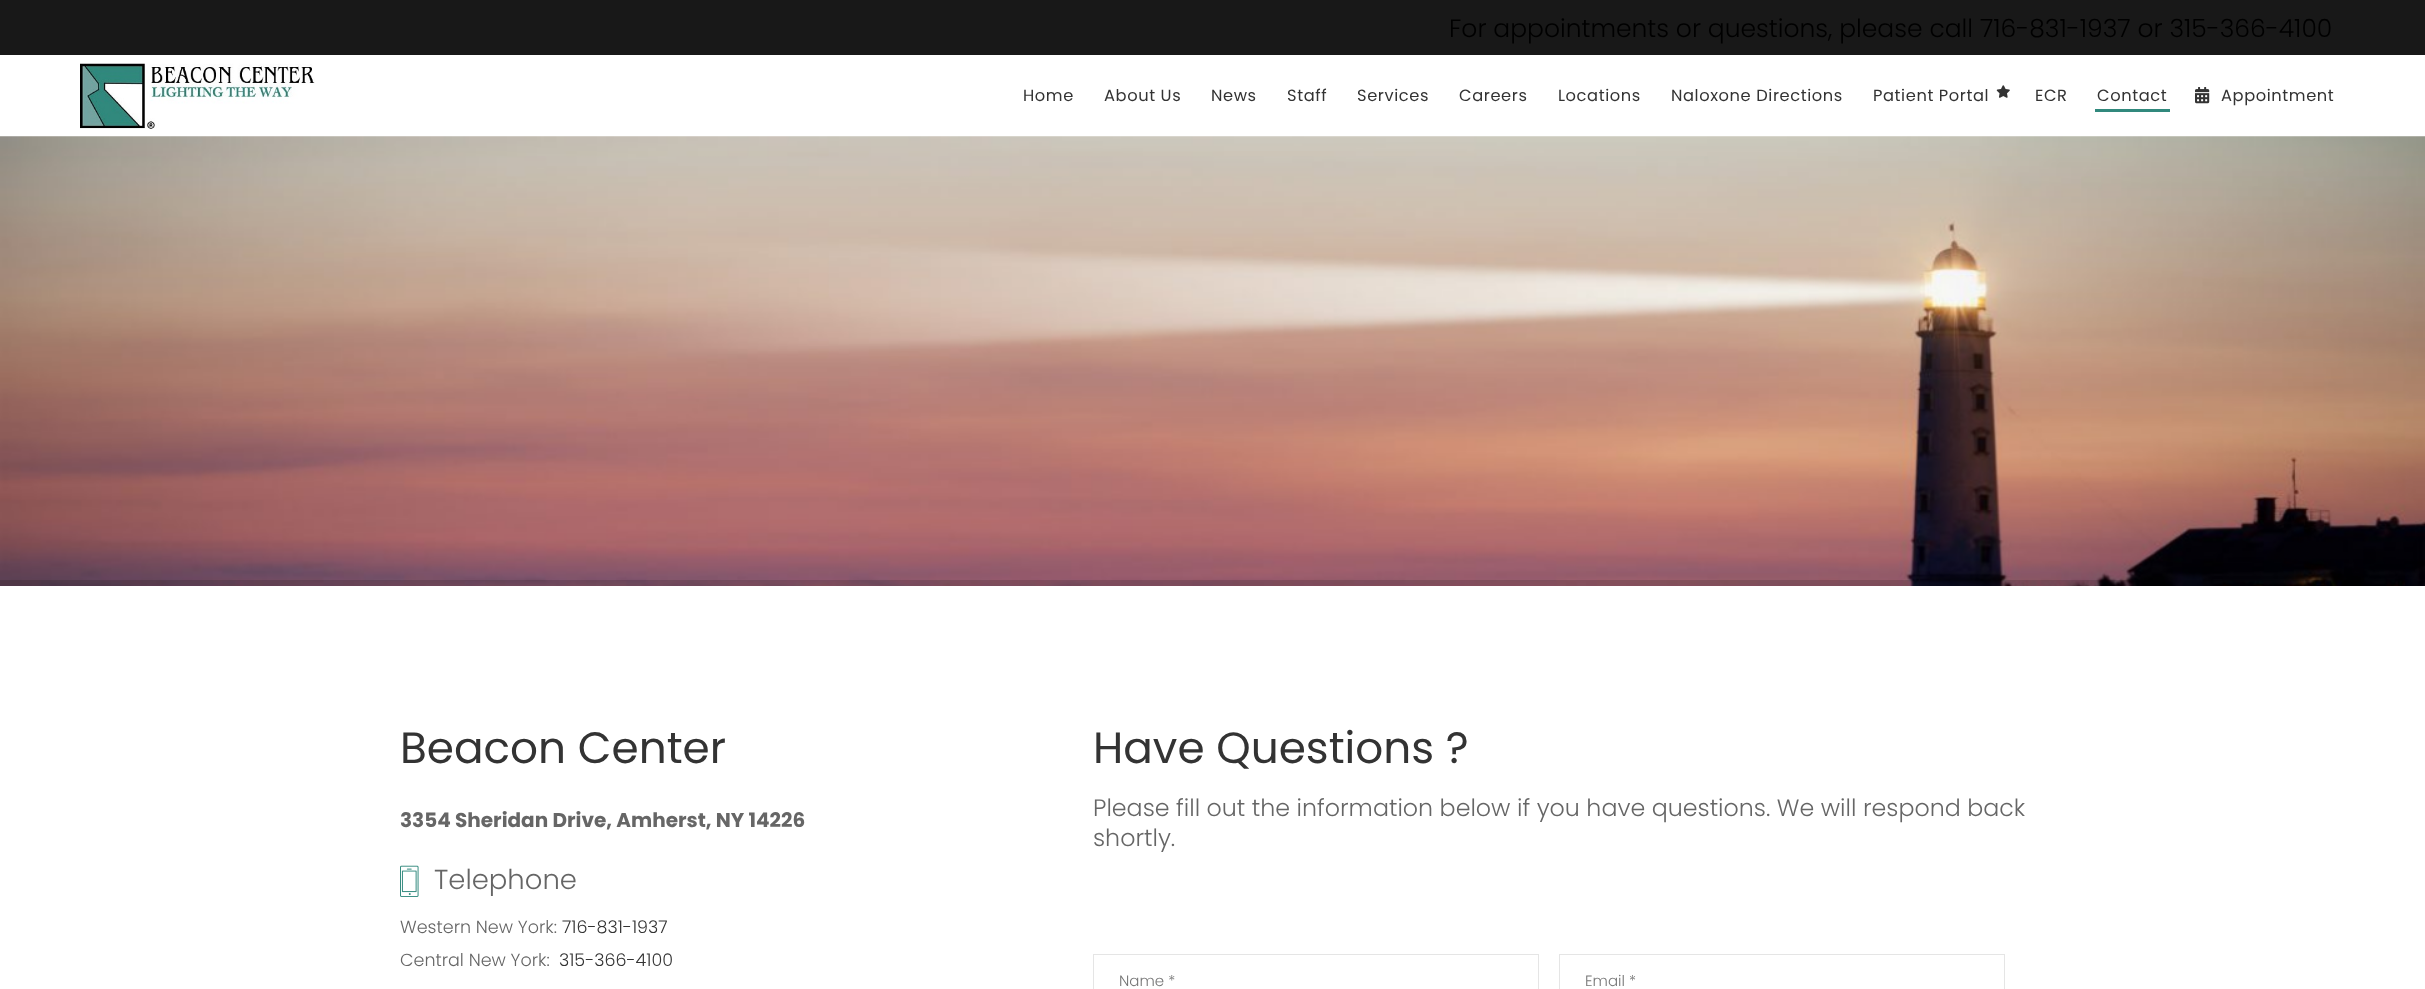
<!DOCTYPE html>
<meta charset="utf-8">
<style>body { margin: 0 } canvas { display: block }</style>
<canvas id="canvas" width="2425" height="989"></canvas>
<script type="module">
  const canvas = document.getElementById("canvas");
  const g = canvas.getContext("2d");
  g.miterLimit = 4;
  g.fontKerning = "normal";
  function drawText(s, x, y, [font, color]) {
    g.font = font;
    g.fillStyle = color;
    g.fillText(s, x, y);
  }
  function fillBox(x, y, w, h, color) {
    g.fillStyle = color;
    g.fillRect(x, y, w, h);
  }
  async function drawPicture(src, x, y, w, h) {
    const img = new Image();
    img.src = src;
    await img.decode();
    g.drawImage(img, x, y, w, h);
  }

  const s1 = ["300 25px Poppins", "#000000"];
  const s2 = ["16.25px Poppins", "#333333"];
  const s3 = ["43.75px Poppins", "#333333"];
  const s4 = ["bold 20px Poppins", "#666666"];
  const s5 = ["300 27.5px Poppins", "#666666"];
  const s6 = ["300 17.5px Poppins", "#666666"];
  const s7 = ["300 17.5px Poppins", "#333333"];
  const s8 = ["300 23.75px Poppins", "#666666"];
  const s9 = ["300 15px Poppins", "#757575"];

  fillBox(0, 0, 2425, 989, "#FFFFFF");
  fillBox(0, 0, 2425, 55, "#181818");
  drawText("For appointments or questions, please call 716-831-1937 or 315-366-4100", 1449, 37, s1);
  await drawPicture("pic1.png", 80, 63, 235, 66);
  g.letterSpacing = "0.6px";
  drawText("Home", 1023, 101, s2);
  drawText("About Us", 1104, 101, s2);
  drawText("News", 1211, 101, s2);
  drawText("Staff", 1287, 101, s2);
  drawText("Services", 1357, 101, s2);
  drawText("Careers", 1459, 101, s2);
  drawText("Locations", 1558, 101, s2);
  drawText("Naloxone Directions", 1671, 101, s2);
  drawText("Patient Portal", 1873, 101, s2);
  await drawPicture("pic2.png", 1996, 85, 14, 13);
  drawText("ECR", 2035, 101, s2);
  drawText("Contact", 2097, 101, s2);
  fillBox(2095, 109, 75, 3, "#31897D");
  await drawPicture("pic3.png", 2195, 87, 15, 17);
  drawText("Appointment", 2221, 101, s2);
  await drawPicture("pic4.png", 0, 136, 2425, 450);
  fillBox(0, 580, 2397, 6, "rgba(0, 0, 0, 0.15)");
  g.letterSpacing = "0px";
  drawText("Beacon Center", 400, 763, s3);
  drawText("3354 Sheridan Drive, Amherst, NY 14226", 400, 827, s4);
  await drawPicture("pic5.png", 400, 865, 19, 32);
  drawText("Telephone", 434, 889, s5);
  drawText("Western New York:", 400, 933, s6);
  drawText("716-831-1937", 562, 933, s7);
  drawText("Central New York:", 400, 966, s6);
  drawText("315-366-4100", 559, 966, s7);
  drawText("Have Questions ?", 1093, 763, s3);
  drawText("Please fill out the information below if you have questions. We will respond back", 1093, 816, s8);
  drawText("shortly.", 1093, 846, s8);
  g.strokeStyle = "#E5E5E5";
  g.strokeRect(1093.5, 954.5, 445, 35);
  drawText("Name *", 1119, 986, s9);
  g.strokeRect(1559.5, 954.5, 445, 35);
  drawText("Email *", 1585, 986, s9);
</script>
